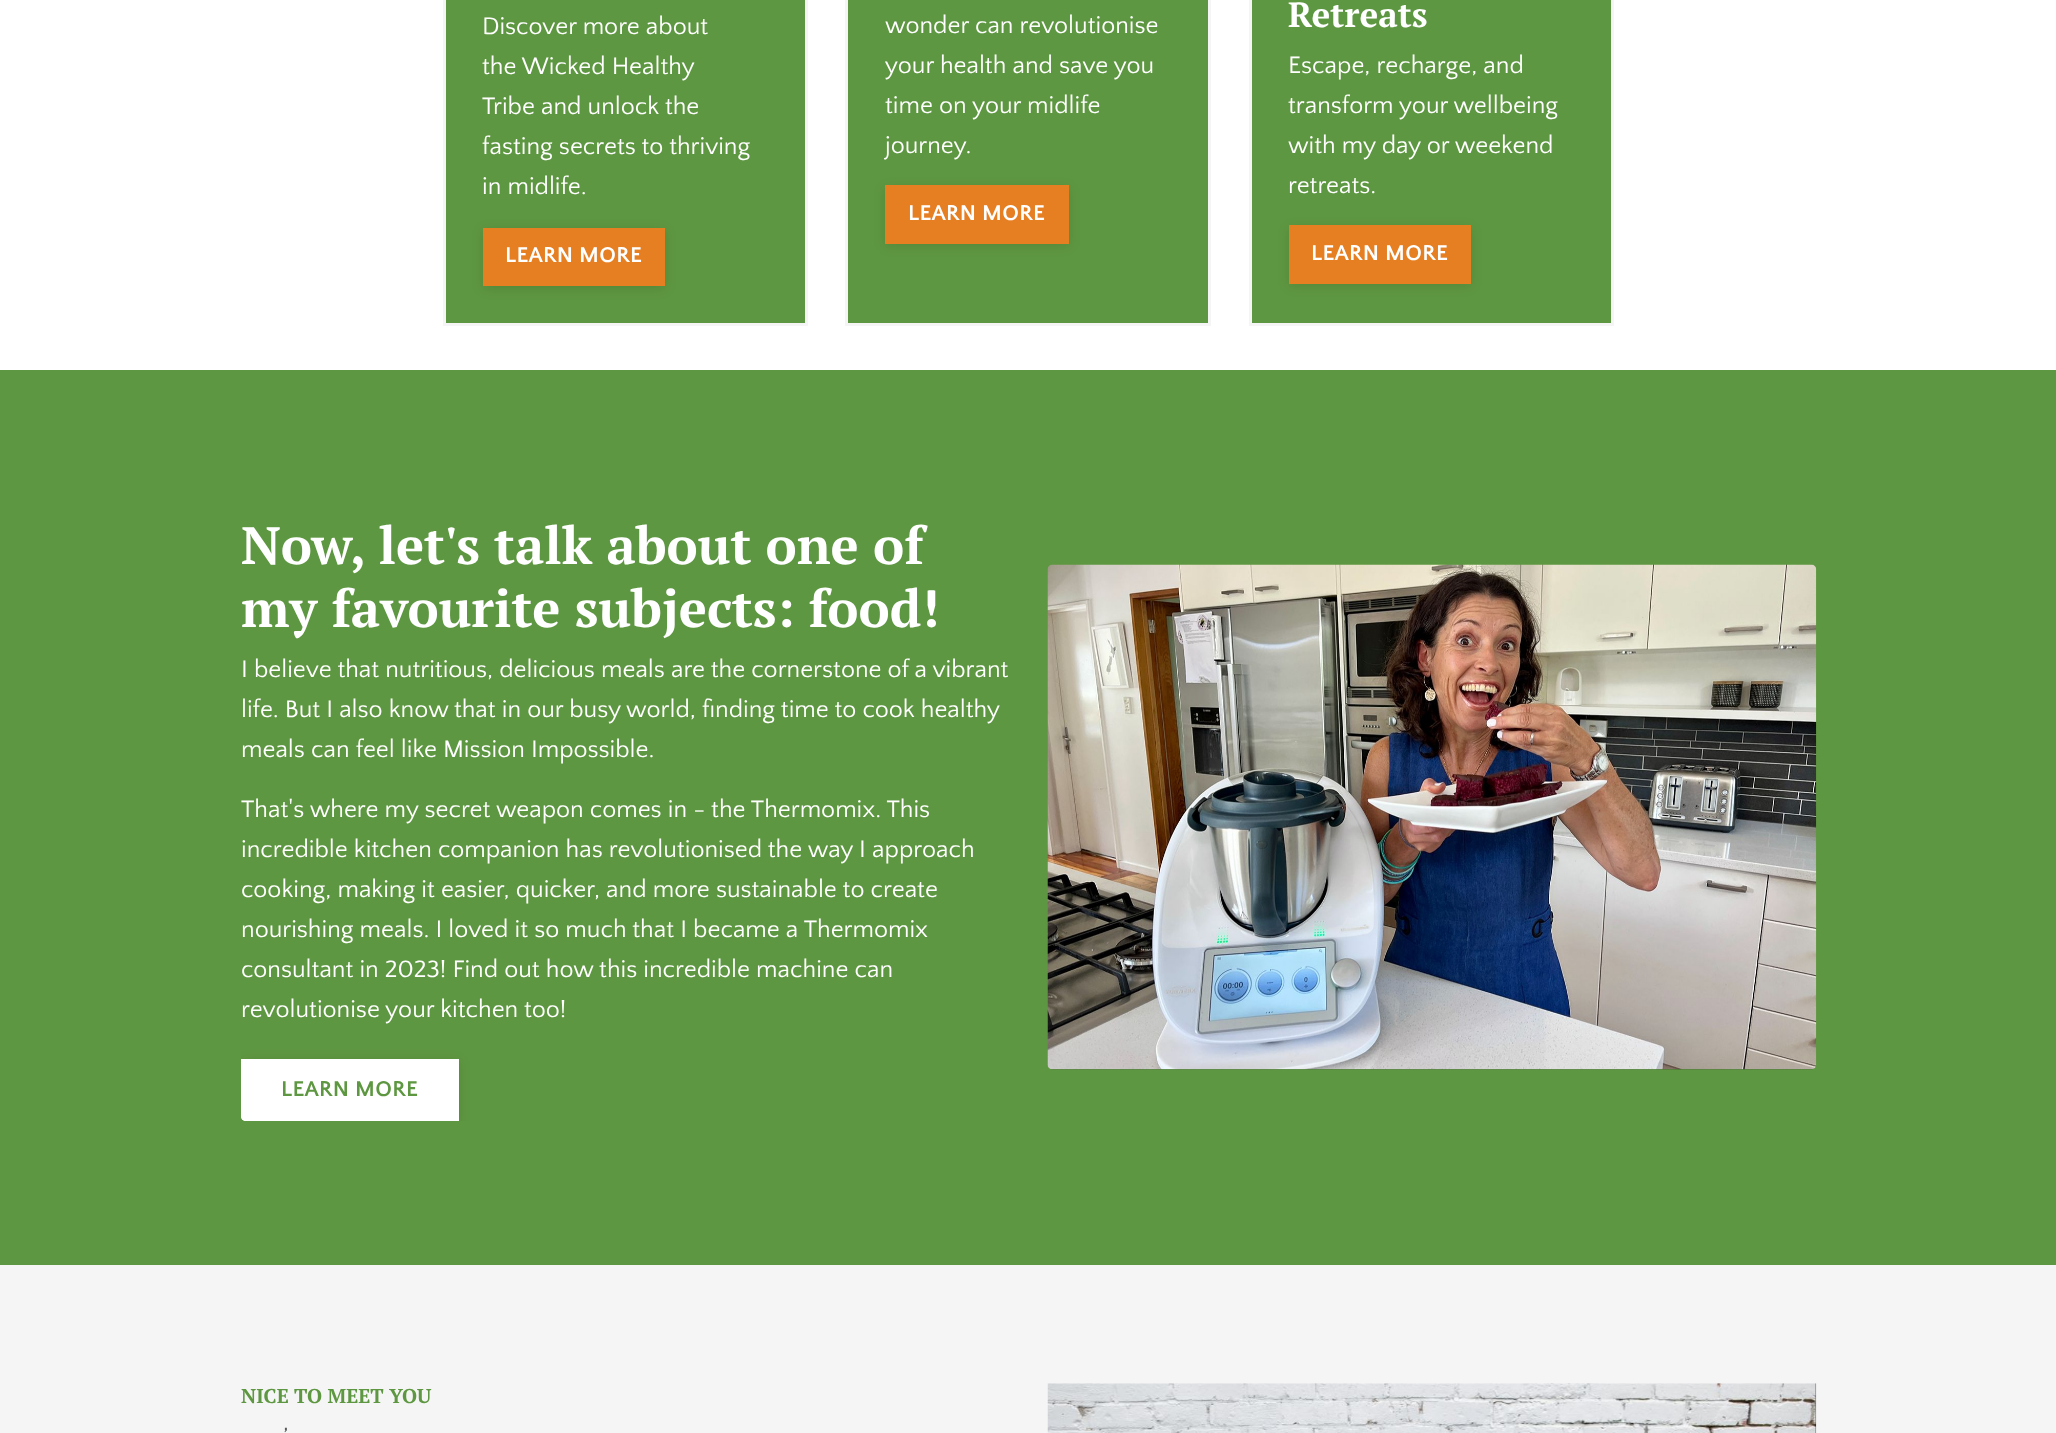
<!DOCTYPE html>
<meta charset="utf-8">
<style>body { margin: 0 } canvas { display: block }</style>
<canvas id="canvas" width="2056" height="1433"></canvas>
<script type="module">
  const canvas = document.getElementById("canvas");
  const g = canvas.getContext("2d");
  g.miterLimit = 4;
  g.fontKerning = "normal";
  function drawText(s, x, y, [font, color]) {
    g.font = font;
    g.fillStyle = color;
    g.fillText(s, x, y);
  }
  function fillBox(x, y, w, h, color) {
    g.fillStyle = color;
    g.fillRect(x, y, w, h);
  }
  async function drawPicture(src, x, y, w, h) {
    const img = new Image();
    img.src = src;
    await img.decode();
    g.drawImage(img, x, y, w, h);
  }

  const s1 = ["25px Quattrocento Sans", "#FFFFFF"];
  const s2 = ["bold 22.5px Quattrocento Sans", "#FFFFFF"];
  const s3 = ["bold 35px PT Serif", "#FFFFFF"];
  const s4 = ["bold 52.5px PT Serif", "#FFFFFF"];
  const s5 = ["bold 22.5px Quattrocento Sans", "#5E9741"];
  const s6 = ["bold 20px PT Serif", "#5E9741"];
  const s7 = ["25px Quattrocento Sans", "#595959"];

  fillBox(0, 0, 2056, 1433, "#5E9741");
  fillBox(0, 0, 2056, 370, "#FFFFFF");
  g.fillStyle = "#5E9741";
  g.beginPath();
  g.rect(444.5, -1.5, 362, 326);
  g.fill();
  g.strokeStyle = "#F5F5F5";
  g.lineWidth = 3;
  g.stroke();
  drawText("Discover more about", 482, 34, s1);
  drawText("the Wicked Healthy", 482, 74, s1);
  drawText("Tribe and unlock the", 482, 114, s1);
  drawText("fasting secrets to thriving", 482, 154, s1);
  drawText("in midlife.", 482, 194, s1);
  g.fillStyle = "rgba(0, 0, 0, 0.1)";
  g.filter = "blur(6px)";
  g.beginPath();
  g.rect(483, 230, 182, 59);
  g.fill();
  g.filter = "none";
  fillBox(483, 228, 182, 58, "#E67E22");
  g.letterSpacing = "0.25px";
  drawText("LEARN MORE", 505, 262, s2);
  g.fillStyle = "#5E9741";
  g.beginPath();
  g.rect(846.5, -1.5, 363, 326);
  g.fill();
  g.stroke();
  g.letterSpacing = "0px";
  drawText("wonder can revolutionise", 885, 33, s1);
  drawText("your health and save you", 885, 73, s1);
  drawText("time on your midlife", 885, 113, s1);
  drawText("journey.", 885, 153, s1);
  g.fillStyle = "rgba(0, 0, 0, 0.1)";
  g.filter = "blur(6px)";
  g.beginPath();
  g.rect(885, 188, 184, 58);
  g.fill();
  g.filter = "none";
  fillBox(885, 185, 184, 59, "#E67E22");
  g.letterSpacing = "0.25px";
  drawText("LEARN MORE", 908, 220, s2);
  g.fillStyle = "#5E9741";
  g.beginPath();
  g.rect(1250.5, -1.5, 362, 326);
  g.fill();
  g.stroke();
  g.letterSpacing = "0px";
  drawText("Retreats", 1288, 27, s3);
  drawText("Escape, recharge, and", 1288, 73, s1);
  drawText("transform your wellbeing", 1288, 113, s1);
  drawText("with my day or weekend", 1288, 153, s1);
  drawText("retreats.", 1288, 193, s1);
  g.fillStyle = "rgba(0, 0, 0, 0.1)";
  g.filter = "blur(6px)";
  g.beginPath();
  g.rect(1289, 228, 182, 58);
  g.fill();
  g.filter = "none";
  fillBox(1289, 225, 182, 59, "#E67E22");
  g.letterSpacing = "0.25px";
  drawText("LEARN MORE", 1311, 260, s2);
  g.letterSpacing = "0px";
  drawText("Now, let's talk about one of", 241, 564, s4);
  drawText("my favourite subjects: food!", 241, 627, s4);
  drawText("I believe that nutritious, delicious meals are the cornerstone of a vibrant", 241, 677, s1);
  drawText("life. But I also know that in our busy world, finding time to cook healthy", 241, 717, s1);
  drawText("meals can feel like Mission Impossible.", 241, 757, s1);
  drawText("That's where my secret weapon comes in - the Thermomix. This", 241, 817, s1);
  drawText("incredible kitchen companion has revolutionised the way I approach", 241, 857, s1);
  drawText("cooking, making it easier, quicker, and more sustainable to create", 241, 897, s1);
  drawText("nourishing meals. I loved it so much that I became a Thermomix", 241, 937, s1);
  drawText("consultant in 2023! Find out how this incredible machine can", 241, 977, s1);
  drawText("revolutionise your kitchen too!", 241, 1017, s1);
  g.save();
  g.beginPath();
  g.roundRect(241, 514, 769, 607, 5);
  g.clip();
  g.fillStyle = "rgba(0, 0, 0, 0.1)";
  g.filter = "blur(6px)";
  g.beginPath();
  g.rect(241, 1061, 218, 63);
  g.fill();
  g.filter = "none";
  g.restore();
  g.beginPath();
  g.roundRect(241, 1059, 218, 62, [0, 0, 0, 5]);
  g.fill();
  g.beginPath();
  g.moveTo(241, 1059);
  g.lineTo(241, 1116);
  g.bezierCurveTo(241, 1119, 243, 1121, 246, 1121);
  g.lineTo(459, 1121);
  g.lineTo(459, 1059);
  g.closePath();
  g.moveTo(244, 1062);
  g.lineTo(244, 1118);
  g.lineTo(456, 1118);
  g.lineTo(456, 1062);
  g.closePath();
  g.fill("evenodd");
  g.letterSpacing = "0.25px";
  drawText("LEARN MORE", 281, 1096, s5);
  await drawPicture("pic1.png", 1047, 564, 770, 506);
  fillBox(0, 1265, 2056, 168, "#F5F5F5");
  g.letterSpacing = "0px";
  drawText("NICE TO MEET YOU", 241, 1403, s6);
  drawText("’", 283, 1446, s7);
  await drawPicture("pic2.png", 1047, 1383, 770, 50);
</script>
